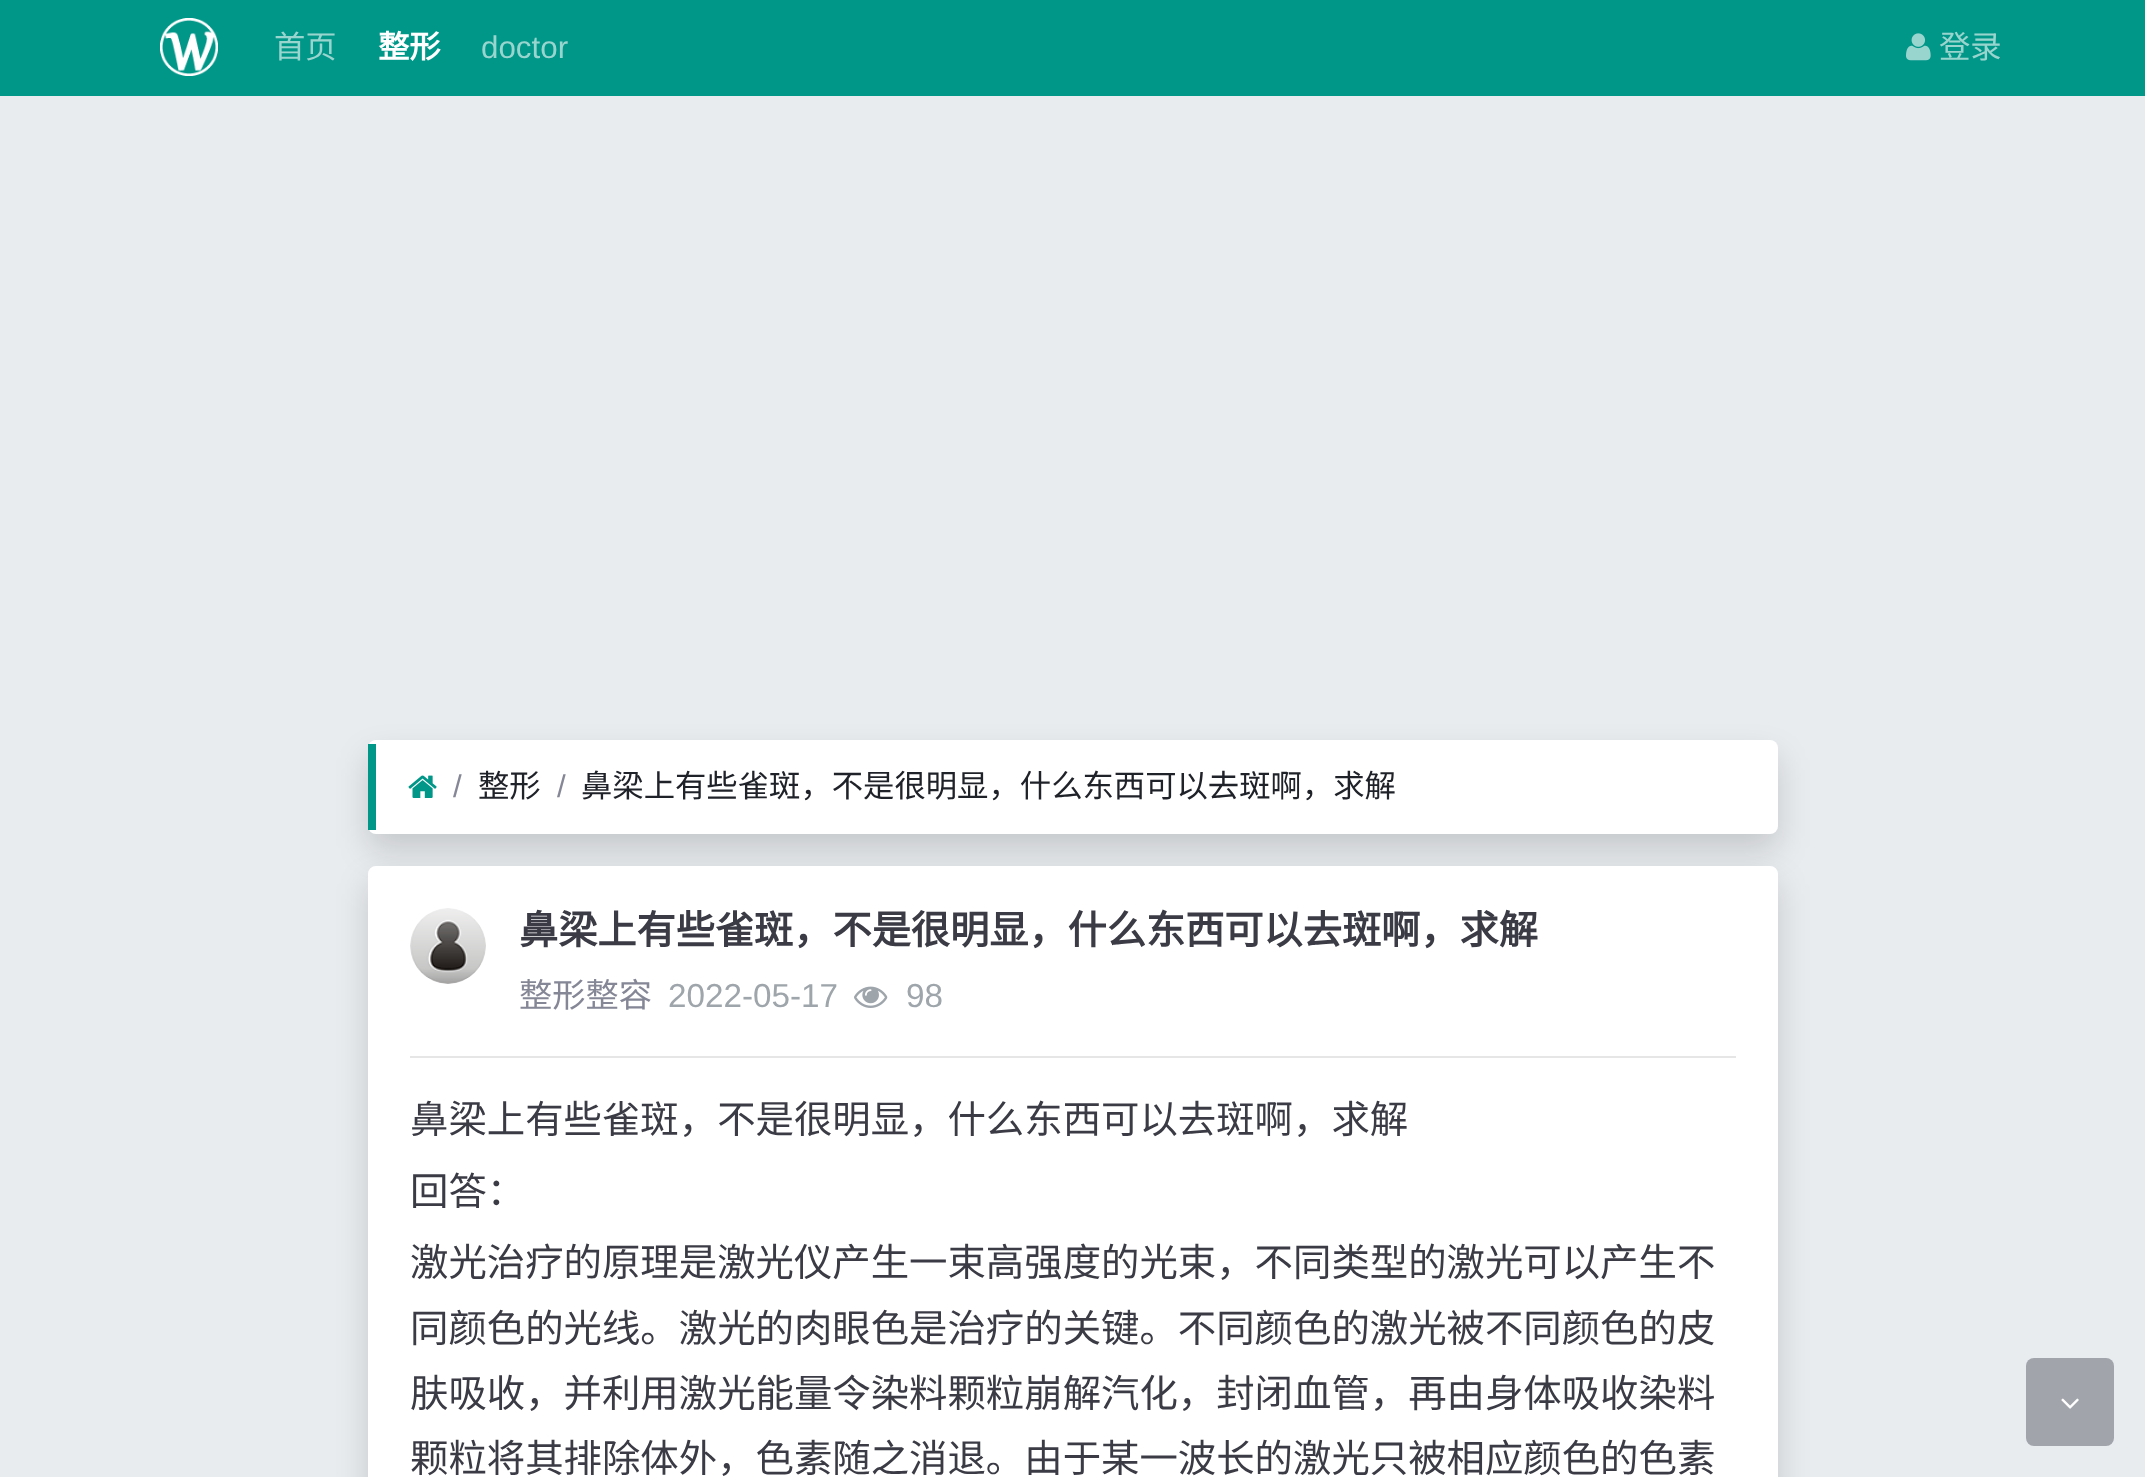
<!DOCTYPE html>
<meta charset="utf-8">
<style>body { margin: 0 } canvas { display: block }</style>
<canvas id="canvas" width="2145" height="1477"></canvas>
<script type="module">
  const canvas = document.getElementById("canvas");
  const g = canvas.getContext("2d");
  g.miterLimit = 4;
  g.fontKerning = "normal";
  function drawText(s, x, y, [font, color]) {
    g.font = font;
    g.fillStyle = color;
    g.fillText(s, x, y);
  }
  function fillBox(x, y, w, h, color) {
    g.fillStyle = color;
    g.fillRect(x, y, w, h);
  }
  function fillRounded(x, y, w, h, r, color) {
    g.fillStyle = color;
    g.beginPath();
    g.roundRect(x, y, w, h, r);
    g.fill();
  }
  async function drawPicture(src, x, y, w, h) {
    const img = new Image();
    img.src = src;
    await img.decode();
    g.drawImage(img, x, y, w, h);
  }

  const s1 = ["31.35px Noto Sans CJK SC", "#99D5CF"];
  const s2 = ["bold 31.35px Noto Sans CJK SC", "#FFFFFF"];
  const s3 = ["31.35px Liberation Sans", "#99D5CF"];
  const s4 = ["31.35px Liberation Sans", "#858796"];
  const s5 = ["31.35px Noto Sans CJK SC", "#20222A"];
  const s6 = ["bold 39.2px Noto Sans CJK SC", "#3A3B45"];
  const s7 = ["33.25px Noto Sans CJK SC", "#858796"];
  const s8 = ["33.25px Liberation Sans", "#9EA5AB"];
  const s9 = ["38.4px Noto Sans CJK SC", "#3A3B45"];

  fillBox(0, 0, 2145, 1477, "#E9ECEF");
  fillBox(0, 0, 2145, 96, "#009688");
  await drawPicture("pic1.png", 160, 18, 58, 58);
  drawText("首页", 274, 58, s1);
  drawText("整形", 378, 58, s2);
  drawText("doctor", 481, 58, s3);
  await drawPicture("pic2.png", 1906, 33, 25, 28);
  drawText("登录", 1939, 58, s1);
  g.fillStyle = "rgba(0, 0, 0, 0.15)";
  g.filter = "blur(16px)";
  g.beginPath();
  g.roundRect(368, 756, 1410, 94, 8);
  g.fill();
  g.filter = "none";
  fillRounded(368, 740, 1410, 94, 8, "#FFFFFF");
  fillBox(368, 744, 8, 86, "#009688");
  await drawPicture("pic3.png", 408, 775, 29, 23);
  drawText("/", 453, 797, s4);
  drawText("整形", 478, 797, s5);
  drawText("/", 557, 797, s4);
  drawText("鼻梁上有些雀斑，不是很明显，什么东西可以去斑啊，求解", 581, 797, s5);
  g.fillStyle = "rgba(0, 0, 0, 0.15)";
  g.filter = "blur(16px)";
  g.beginPath();
  g.roundRect(368, 882, 1410, 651, 8);
  g.fill();
  g.filter = "none";
  g.fillStyle = "#FFFFFF";
  g.beginPath();
  g.roundRect(369, 867, 1408, 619, 7);
  g.fill();
  g.strokeStyle = "#FFFFFF";
  g.lineWidth = 2;
  g.stroke();
  await drawPicture("pic4.png", 410, 908, 76, 76);
  drawText("鼻梁上有些雀斑，不是很明显，什么东西可以去斑啊，求解", 519, 944, s6);
  drawText("整形整容", 519, 1007, s7);
  drawText("2022-05-17", 668, 1007, s8);
  await drawPicture("pic5.png", 854, 986, 34, 22);
  drawText("98", 906, 1007, s8);
  fillBox(410, 1056, 1326, 2, "#E6E6E6");
  drawText("鼻梁上有些雀斑，不是很明显，什么东西可以去斑啊，求解", 410, 1133, s9);
  drawText("回答：", 410, 1205, s9);
  drawText("激光治疗的原理是激光仪产生一束高强度的光束，不同类型的激光可以产生不", 410, 1276, s9);
  drawText("同颜色的光线。激光的肉眼色是治疗的关键。不同颜色的激光被不同颜色的皮", 410, 1342, s9);
  drawText("肤吸收，并利用激光能量令染料颗粒崩解汽化，封闭血管，再由身体吸收染料", 410, 1407, s9);
  drawText("颗粒将其排除体外，色素随之消退。由于某一波长的激光只被相应颜色的色素", 410, 1472, s9);
  fillRounded(2026, 1358, 88, 88, 8, "#A2A4AC");
  await drawPicture("pic6.png", 2061, 1398, 18, 11);
</script>
